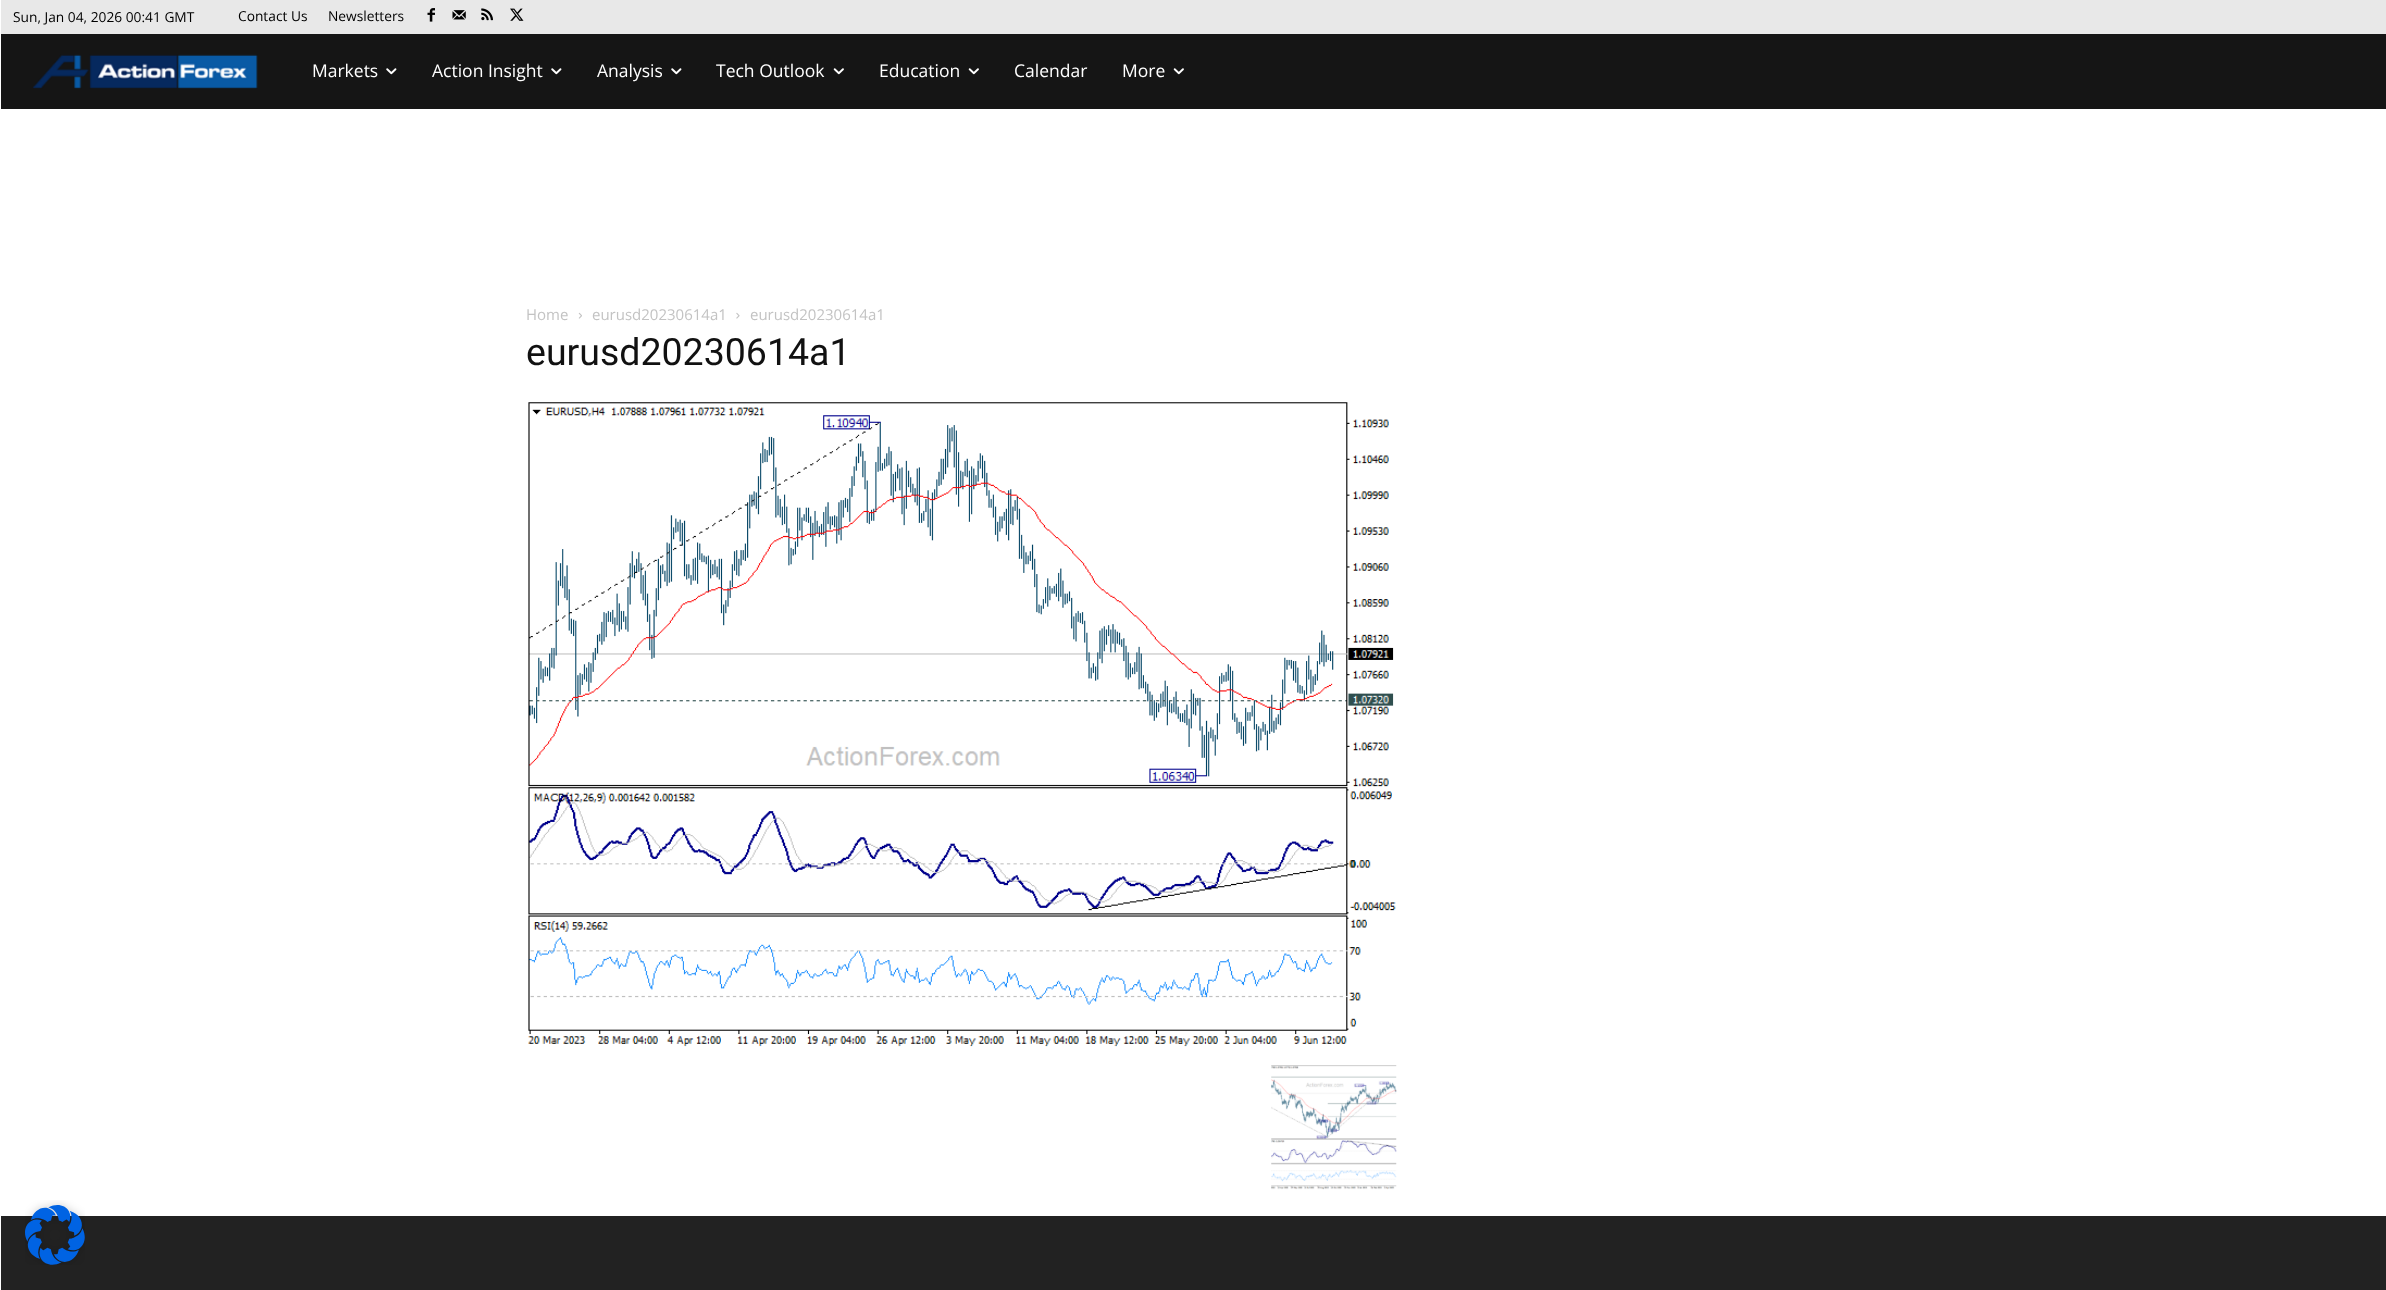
<!DOCTYPE html>
<meta charset="utf-8">
<style>body { margin: 0 } canvas { display: block }</style>
<canvas id="canvas" width="2386" height="1290"></canvas>
<script type="module">
  const canvas = document.getElementById("canvas");
  const g = canvas.getContext("2d");
  g.miterLimit = 4;
  g.fontKerning = "normal";
  function drawText(s, x, y, [font, color]) {
    g.font = font;
    g.fillStyle = color;
    g.fillText(s, x, y);
  }
  function fillBox(x, y, w, h, color) {
    g.fillStyle = color;
    g.fillRect(x, y, w, h);
  }
  async function drawPicture(src, x, y, w, h) {
    const img = new Image();
    img.src = src;
    await img.decode();
    g.drawImage(img, x, y, w, h);
  }

  const s1 = ["13.75px Open Sans", "#000000"];
  const s2 = ["17.5px Open Sans", "#FFFFFF"];
  const s3 = ["15px Open Sans", "#C3C3C3"];
  const s4 = ["37.5px Roboto", "#111111"];

  fillBox(0, 0, 2386, 1290, "#FFFFFF");
  fillBox(1, 0, 2385, 34, "#E8E8E8");
  drawText("Sun, Jan 04, 2026 00:41 GMT", 13, 22, s1);
  drawText("Contact Us", 238, 21, s1);
  drawText("Newsletters", 328, 21, s1);
  await drawPicture("pic1.png", 427, 8, 8, 14);
  await drawPicture("pic2.png", 452, 10, 14, 10);
  await drawPicture("pic3.png", 481, 8, 12, 13);
  await drawPicture("pic4.png", 510, 8, 14, 13);
  fillBox(1, 34, 2385, 75, "#151515");
  await drawPicture("pic5.png", 33, 54, 225, 35);
  drawText("Markets", 312, 77, s2);
  await drawPicture("pic6.png", 386, 68, 11, 7);
  drawText("Action Insight", 432, 77, s2);
  await drawPicture("pic6.png", 551, 68, 11, 7);
  drawText("Analysis", 597, 77, s2);
  await drawPicture("pic6.png", 671, 68, 11, 7);
  drawText("Tech Outlook", 716, 77, s2);
  await drawPicture("pic7.png", 833, 68, 11, 7);
  drawText("Education", 879, 77, s2);
  await drawPicture("pic7.png", 968, 68, 11, 7);
  drawText("Calendar", 1014, 77, s2);
  drawText("More", 1122, 77, s2);
  await drawPicture("pic7.png", 1173, 68, 11, 7);
  drawText("Home", 526, 320, s3);
  await drawPicture("pic8.png", 578, 312, 4, 7);
  drawText("eurusd20230614a1", 592, 320, s3);
  await drawPicture("pic9.png", 736, 312, 4, 7);
  drawText("eurusd20230614a1", 750, 320, s3);
  drawText("eurusd20230614a1", 526, 365, s4);
  await drawPicture("pic10.png", 528, 402, 868, 645);
  await drawPicture("pic11.png", 1271, 1065, 126, 125);
  fillBox(1, 1216, 2385, 74, "#222222");
  await drawPicture("pic12.png", 25, 1200, 60, 65);
</script>
